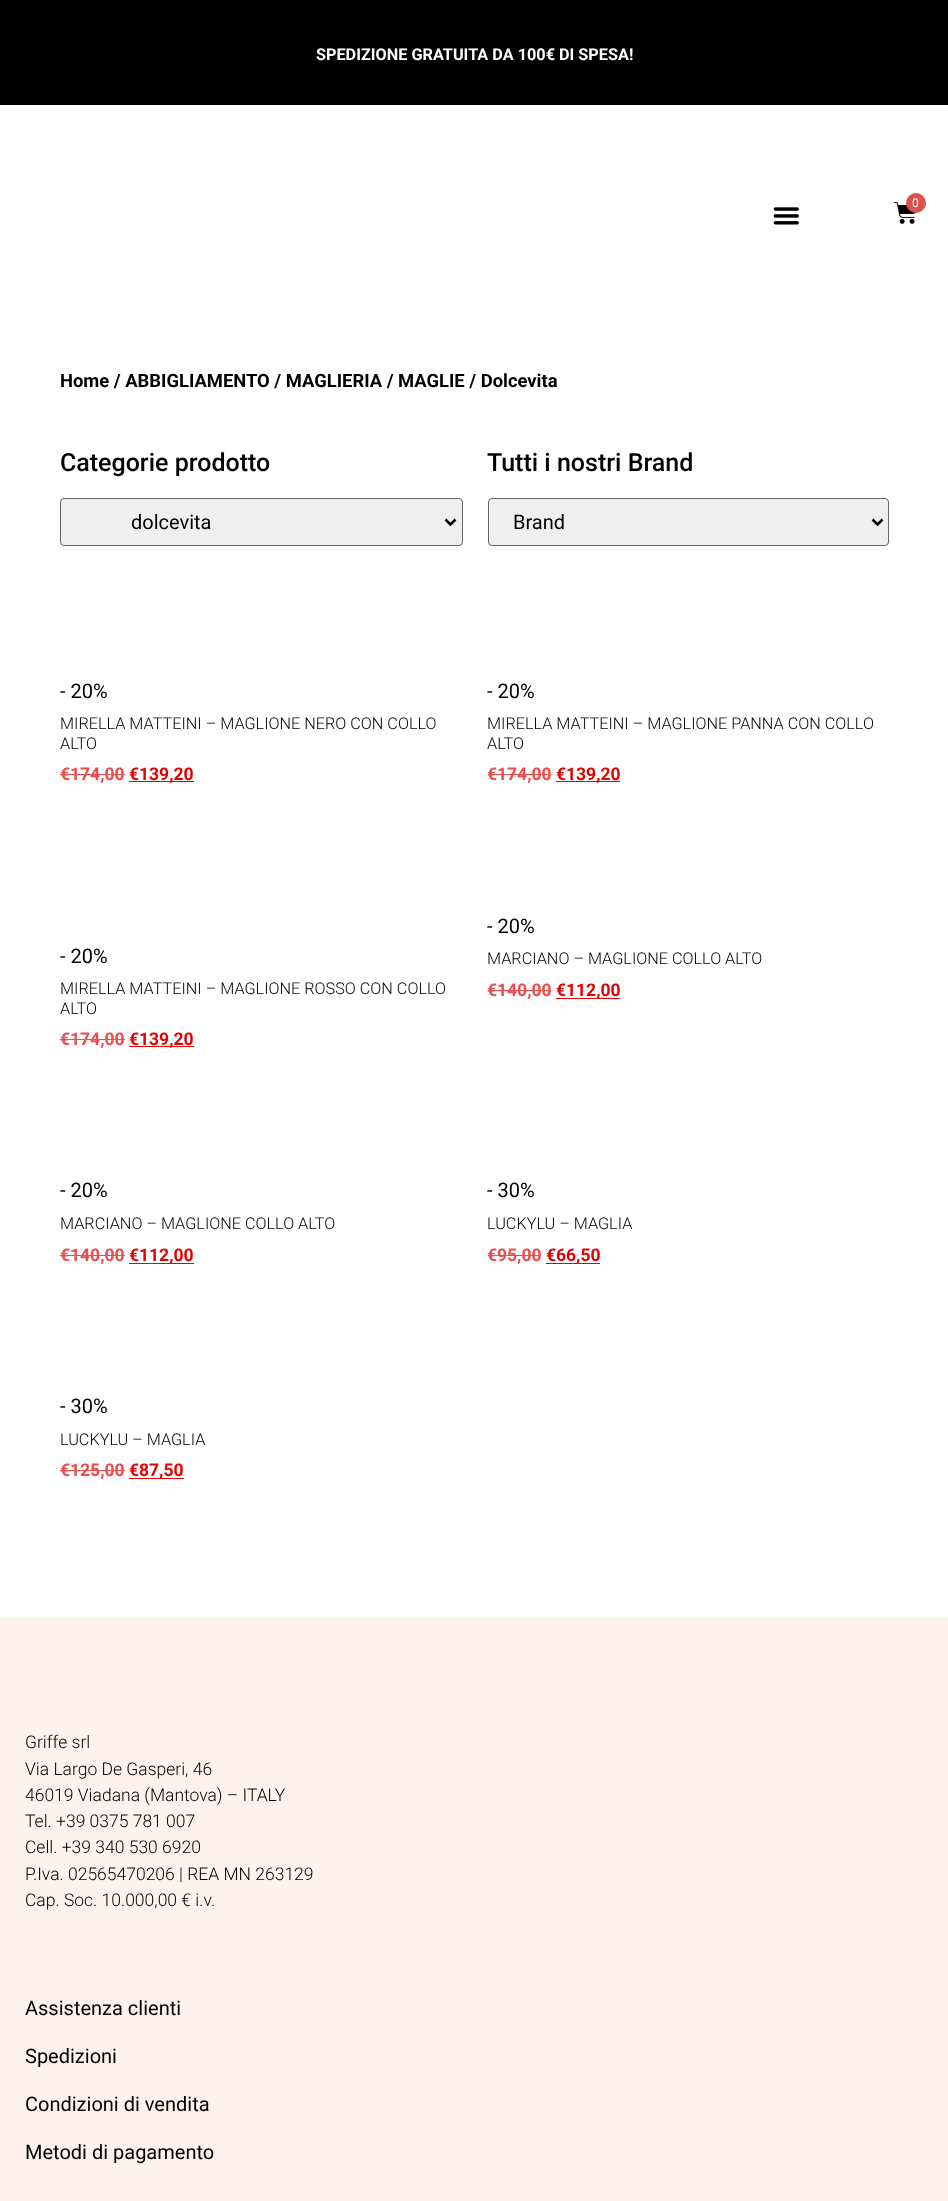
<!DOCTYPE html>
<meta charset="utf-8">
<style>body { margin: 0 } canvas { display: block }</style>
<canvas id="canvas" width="948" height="2201"></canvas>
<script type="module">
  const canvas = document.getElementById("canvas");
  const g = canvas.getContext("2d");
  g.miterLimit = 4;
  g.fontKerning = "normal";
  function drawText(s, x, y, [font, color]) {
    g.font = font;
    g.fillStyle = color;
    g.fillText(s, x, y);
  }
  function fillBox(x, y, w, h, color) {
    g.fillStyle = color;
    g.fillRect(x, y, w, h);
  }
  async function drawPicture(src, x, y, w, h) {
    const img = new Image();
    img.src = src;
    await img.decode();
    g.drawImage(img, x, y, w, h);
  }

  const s1 = ["bold 16.25px Roboto", "#FFFFFF"];
  const s2 = ["12px Roboto", "#FFFFFF"];
  const s3 = ["bold 18.4px Roboto", "#000000"];
  const s4 = ["500 25px Roboto", "#000000"];
  const s5 = ["20px Roboto", "#000000"];
  const s6 = ["300 16.25px Roboto", "#000000"];
  const s7 = ["bold 17.5px Roboto", "#EB4D4D"];
  const s8 = ["bold 17.5px Roboto", "#E30101"];
  const s9 = ["300 17.5px Roboto", "#000000"];

  fillBox(0, 0, 948, 2201, "#FFFFFF");
  fillBox(0, 0, 948, 105, "#000000");
  drawText("SPEDIZIONE GRATUITA DA 100€ DI SPESA!", 316, 60, s1);
  await drawPicture("pic1.png", 893, 202, 23, 22);
  g.fillStyle = "#D9534F";
  g.beginPath();
  g.arc(916, 203, 10, 0, Math.PI * 2);
  g.fill();
  drawText("0", 912, 207, s2);
  await drawPicture("pic2.png", 773, 207, 26, 18);
  drawText("Home / ABBIGLIAMENTO / MAGLIERIA / MAGLIE / Dolcevita", 60, 387, s3);
  drawText("Categorie prodotto", 60, 471, s4);
  g.fillStyle = "#EFEFEF";
  g.beginPath();
  g.roundRect(60.5, 498.5, 402, 47, 3.5);
  g.fill();
  g.strokeStyle = "#666666";
  g.stroke();
  g.beginPath();
  g.moveTo(445.5, 519.5);
  g.lineTo(450.5, 524.5);
  g.lineTo(455.5, 519.5);
  g.strokeStyle = "#000000";
  g.lineWidth = 2.5;
  g.stroke();
  drawText("dolcevita", 131, 529, s5);
  drawText("Tutti i nostri Brand", 487, 471, s4);
  g.fillStyle = "#EFEFEF";
  g.beginPath();
  g.roundRect(488.5, 498.5, 400, 47, 3.5);
  g.fill();
  g.strokeStyle = "#666666";
  g.lineWidth = 1;
  g.stroke();
  g.beginPath();
  g.moveTo(872.5, 519.5);
  g.lineTo(877.5, 524.5);
  g.lineTo(882.5, 519.5);
  g.strokeStyle = "#000000";
  g.lineWidth = 2.5;
  g.stroke();
  drawText("Brand", 513, 529, s5);
  drawText("- 20%", 60, 698, s5);
  drawText("MIRELLA MATTEINI – MAGLIONE NERO CON COLLO", 60, 729, s6);
  drawText("ALTO", 60, 749, s6);
  drawText("€174,00", 60, 780, s7);
  fillBox(60, 774, 65, 1, "#EB4D4D");
  fillBox(129, 781, 65, 1, "#E30101");
  drawText("€139,20", 129, 780, s8);
  drawText("- 20%", 487, 698, s5);
  drawText("MIRELLA MATTEINI – MAGLIONE PANNA CON COLLO", 487, 729, s6);
  drawText("ALTO", 487, 749, s6);
  drawText("€174,00", 487, 780, s7);
  fillBox(488, 774, 63, 1, "#EB4D4D");
  fillBox(556, 781, 64, 1, "#E30101");
  drawText("€139,20", 556, 780, s8);
  drawText("- 20%", 60, 963, s5);
  drawText("MIRELLA MATTEINI – MAGLIONE ROSSO CON COLLO", 60, 994, s6);
  drawText("ALTO", 60, 1014, s6);
  drawText("€174,00", 60, 1045, s7);
  fillBox(60, 1039, 65, 1, "#EB4D4D");
  fillBox(129, 1046, 65, 1, "#E30101");
  drawText("€139,20", 129, 1045, s8);
  drawText("- 20%", 487, 933, s5);
  drawText("MARCIANO – MAGLIONE COLLO ALTO", 487, 964, s6);
  drawText("€140,00", 487, 996, s7);
  fillBox(488, 990, 63, 1, "#EB4D4D");
  fillBox(556, 998, 64, 1, "#E30101");
  drawText("€112,00", 556, 996, s8);
  drawText("- 20%", 60, 1197, s5);
  drawText("MARCIANO – MAGLIONE COLLO ALTO", 60, 1229, s6);
  drawText("€140,00", 60, 1261, s7);
  fillBox(60, 1255, 65, 1, "#EB4D4D");
  fillBox(129, 1263, 65, 1, "#E30101");
  drawText("€112,00", 129, 1261, s8);
  drawText("- 30%", 487, 1197, s5);
  drawText("LUCKYLU – MAGLIA", 487, 1229, s6);
  drawText("€", 487, 1261, s7);
  fillBox(488, 1255, 10, 1, "#EB4D4D");
  fillBox(498, 1255, 43, 1, "#EB4D4D");
  drawText("95,00", 497, 1261, s7);
  fillBox(546, 1263, 54, 1, "#E30101");
  drawText("€66,50", 546, 1261, s8);
  drawText("- 30%", 60, 1413, s5);
  drawText("LUCKYLU – MAGLIA", 60, 1445, s6);
  drawText("€125,00", 60, 1476, s7);
  fillBox(60, 1470, 65, 1, "#EB4D4D");
  fillBox(129, 1478, 55, 1, "#E30101");
  drawText("€87,50", 129, 1476, s8);
  fillBox(0, 1618, 948, 583, "#FFF2EC");
  drawText("Griffe srl", 25, 1748, s9);
  drawText("Via Largo De Gasperi, 46", 25, 1775, s9);
  drawText("46019 Viadana (Mantova) – ITALY", 25, 1801, s9);
  drawText("Tel. +39 0375 781 007", 25, 1827, s9);
  drawText("Cell. +39 340 530 6920", 25, 1853, s9);
  drawText("P.Iva. 02565470206 | REA MN 263129", 25, 1880, s9);
  drawText("Cap. Soc. 10.000,00 € i.v.", 25, 1906, s9);
  drawText("Assistenza clienti", 25, 2015, s5);
  drawText("Spedizioni", 25, 2063, s5);
  drawText("Condizioni di vendita", 25, 2111, s5);
  drawText("Metodi di pagamento", 25, 2159, s5);
</script>
